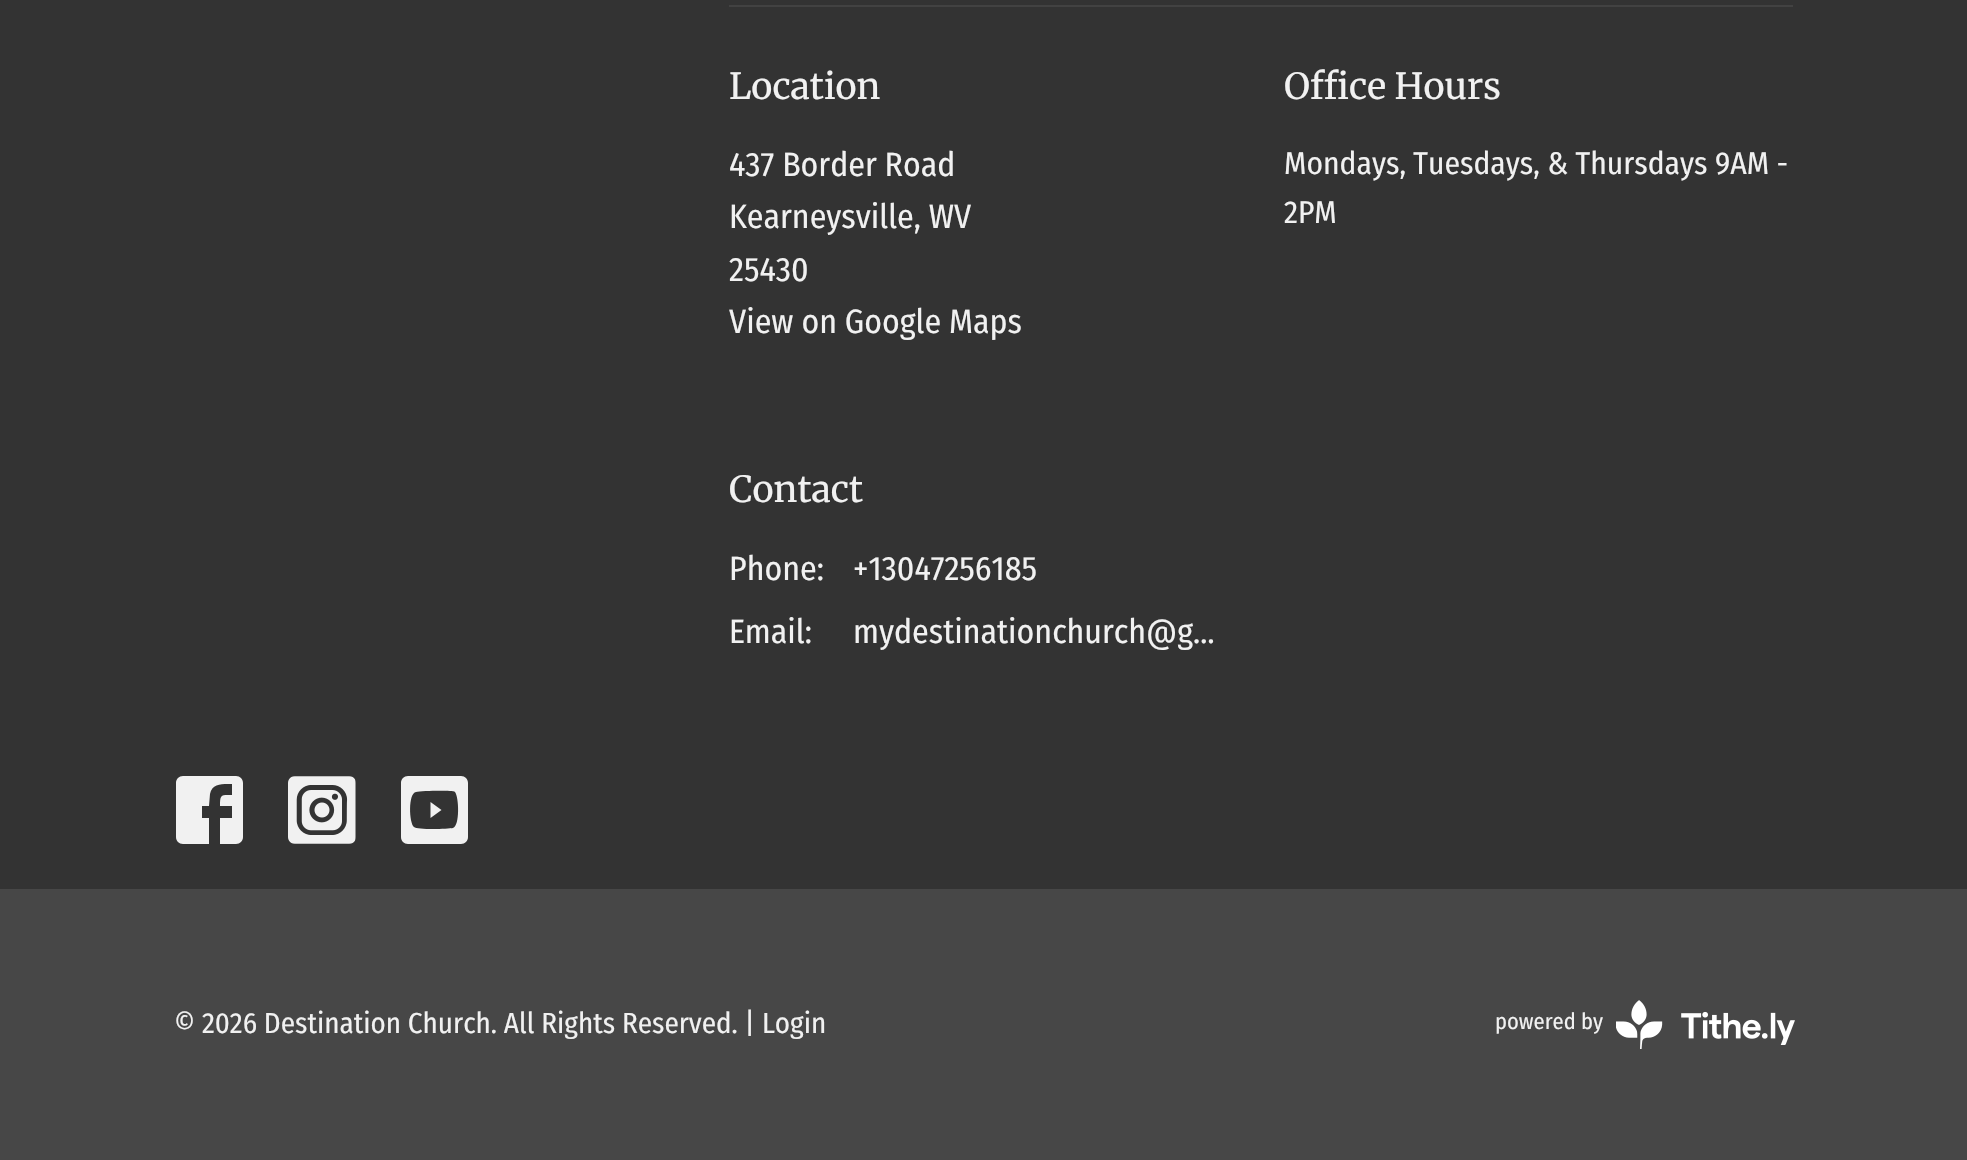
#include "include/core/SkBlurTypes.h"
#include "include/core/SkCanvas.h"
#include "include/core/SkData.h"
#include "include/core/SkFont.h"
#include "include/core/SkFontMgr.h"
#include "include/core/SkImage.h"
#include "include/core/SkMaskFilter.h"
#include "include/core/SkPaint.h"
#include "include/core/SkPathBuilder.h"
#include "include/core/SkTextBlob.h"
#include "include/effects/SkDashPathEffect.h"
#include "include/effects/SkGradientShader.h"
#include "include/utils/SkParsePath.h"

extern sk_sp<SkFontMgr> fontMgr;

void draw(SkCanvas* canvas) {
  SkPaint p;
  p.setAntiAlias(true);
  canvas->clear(SkColorSetRGB(71, 71, 71));
  p.setColor(SkColorSetRGB(51, 51, 51));
  canvas->drawRect(SkRect::MakeLTRB(0, 0, 1967, 889), p);
  p.setColor(SkColorSetRGB(66, 66, 66));
  canvas->drawRect(SkRect::MakeLTRB(729, 5, 1793, 7), p);
  p.setColor(SkColorSetRGB(241, 241, 241));
  canvas->drawPath(SkPathBuilder().moveTo(232, 784).lineTo(232, 795).cubicTo(221, 795, 220, 794, 220, 806).lineTo(232, 806).lineTo(232, 818).lineTo(220, 818).lineTo(220, 844).lineTo(236, 844).cubicTo(240, 844, 243, 841, 243, 837).lineTo(243, 783).cubicTo(243, 779, 240, 776, 236, 776).lineTo(183, 776).cubicTo(179, 776, 176, 779, 176, 783).lineTo(176, 837).cubicTo(176, 841, 179, 844, 183, 844).lineTo(209, 844).lineTo(209, 818).lineTo(202, 818).lineTo(202, 806).lineTo(209, 806).lineTo(210, 794).cubicTo(212, 783, 223, 784, 232, 784).close().detach(), p);
  canvas->drawImageRect(SkImages::DeferredFromEncodedData(SkData::MakeFromFileName("images/1.png")), SkRect::MakeLTRB(288, 776, 356, 844), SkSamplingOptions());
  canvas->drawPath(SkPathBuilder().moveTo(430.5f, 802).lineTo(441.5f, 810).lineTo(430.5f, 818).close().detach(), p);
  canvas->drawPath(SkPathBuilder(SkPathFillType::kEvenOdd).moveTo(408, 776).cubicTo(404, 776, 401, 779, 401, 783).lineTo(401, 837).cubicTo(401, 841, 404, 844, 408, 844).lineTo(461, 844).cubicTo(465, 844, 468, 841, 468, 837).lineTo(468, 783).cubicTo(468, 779, 465, 776, 461, 776).close().moveTo(453, 828).cubicTo(460, 826, 459, 797, 455, 792).cubicTo(452, 790, 421, 791, 416, 792).cubicTo(408, 793, 409, 823, 414, 827).cubicTo(417, 830, 448, 829, 453, 828).close().detach(), p);
  canvas->drawImageRect(SkImages::DeferredFromEncodedData(SkData::MakeFromFileName("images/2.png")), SkRect::MakeLTRB(1616, 1000, 1795, 1049), SkSamplingOptions());
  SkFont font1(fontMgr->matchFamilyStyle("Merriweather", SkFontStyle::Normal()), 36);
  font1.setSubpixel(true);
  canvas->drawString("Location", 729, 99, font1, p);
  SkFont font2(fontMgr->matchFamilyStyle("Fira Sans Condensed", SkFontStyle::Normal()), 33.75f);
  font2.setSubpixel(true);
  canvas->drawString("437 Border Road", 729, 176, font2, p);
  canvas->drawString("Kearneysville, WV", 729, 228, font2, p);
  canvas->drawString("25430", 729, 281, font2, p);
  canvas->drawString("View on Google Maps", 729, 333, font2, p);
  canvas->drawString("Office Hours", 1284, 99, font1, p);
  SkFont font3(fontMgr->matchFamilyStyle("Fira Sans Condensed", SkFontStyle::Normal()), 31.5f);
  font3.setSubpixel(true);
  canvas->drawString("Mondays, Tuesdays, & Thursdays 9AM -", 1284, 174, font3, p);
  canvas->drawString("2PM", 1284, 223, font3, p);
  canvas->drawString("Contact", 729, 502, font1, p);
  canvas->drawString("Phone:", 729, 580, font2, p);
  canvas->drawString("+13047256185", 853, 580, font2, p);
  canvas->drawString("Email:", 729, 643, font2, p);
  canvas->drawString("mydestinationchurch@g…", 853, 643, font2, p);
  SkFont font4(fontMgr->matchFamilyStyle("Fira Sans Condensed", SkFontStyle::Normal()), 29);
  font4.setSubpixel(true);
  canvas->drawString("© 2026 Destination Church. All Rights Reserved. |", 174, 1033, font4, p);
  canvas->drawString("Login", 762, 1033, font4, p);
  SkFont font5(fontMgr->matchFamilyStyle("Fira Sans Condensed", SkFontStyle::Normal()), 22.5f);
  font5.setSubpixel(true);
  canvas->drawString("powered by", 1495, 1029, font5, p);
}
